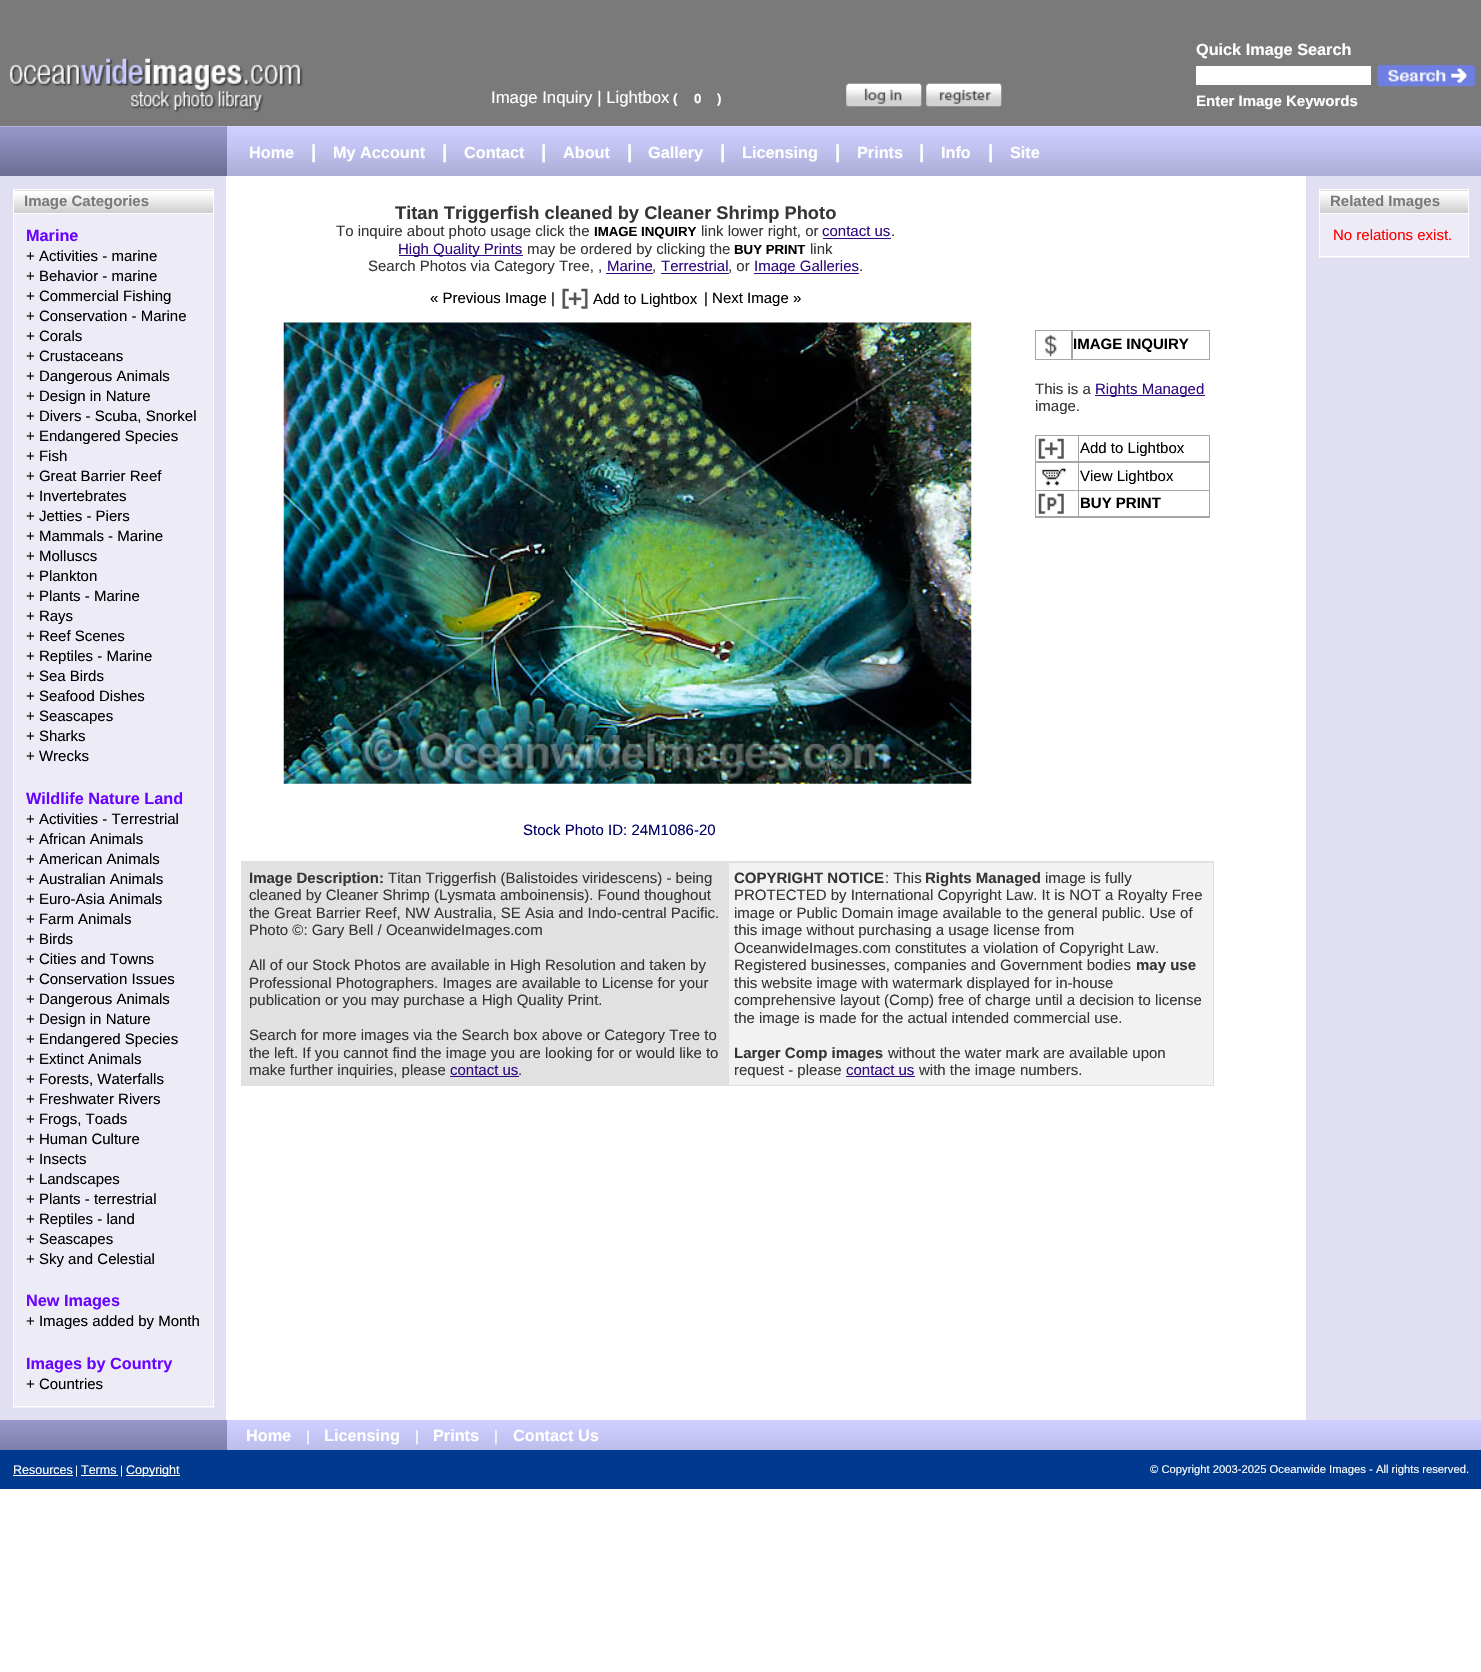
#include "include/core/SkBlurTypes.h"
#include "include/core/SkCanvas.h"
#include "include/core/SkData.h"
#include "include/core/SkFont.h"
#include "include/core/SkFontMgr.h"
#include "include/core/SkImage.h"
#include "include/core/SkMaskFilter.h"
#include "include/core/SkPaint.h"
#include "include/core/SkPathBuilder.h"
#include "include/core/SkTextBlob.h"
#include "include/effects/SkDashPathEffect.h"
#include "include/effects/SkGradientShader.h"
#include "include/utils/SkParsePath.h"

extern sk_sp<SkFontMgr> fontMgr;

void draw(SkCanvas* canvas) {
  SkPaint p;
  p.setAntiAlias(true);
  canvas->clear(SK_ColorWHITE);
  p.setColor(SkColorSetRGB(122, 122, 122));
  canvas->drawRect(SkRect::MakeLTRB(0, 0, 1481, 126), p);
  canvas->drawImageRect(SkImages::DeferredFromEncodedData(SkData::MakeFromFileName("images/1.png")), SkRect::MakeLTRB(9, 58, 303, 113), SkSamplingOptions());
  canvas->drawImageRect(SkImages::DeferredFromEncodedData(SkData::MakeFromFileName("images/2.png")), SkRect::MakeLTRB(846, 83, 922, 107), SkSamplingOptions());
  canvas->drawImageRect(SkImages::DeferredFromEncodedData(SkData::MakeFromFileName("images/3.png")), SkRect::MakeLTRB(926, 83, 1002, 107), SkSamplingOptions());
  p.setColor(SK_ColorWHITE);
  canvas->drawRect(SkRect::MakeLTRB(1196, 66, 1371, 85), p);
  canvas->drawImageRect(SkImages::DeferredFromEncodedData(SkData::MakeFromFileName("images/4.png")), SkRect::MakeLTRB(1377, 64, 1476, 87), SkSamplingOptions());
  canvas->drawImageRect(SkImages::DeferredFromEncodedData(SkData::MakeFromFileName("images/5.png")), SkRect::MakeLTRB(0, 126, 228, 176), SkSamplingOptions());
  canvas->drawImageRect(SkImages::DeferredFromEncodedData(SkData::MakeFromFileName("images/6.png")), SkRect::MakeLTRB(227, 126, 1481, 176), SkSamplingOptions());
  p.setColor(SkColorSetRGB(224, 224, 242));
  canvas->drawRect(SkRect::MakeLTRB(0, 176, 226, 1420), p);
  p.setColor(SK_ColorWHITE);
  canvas->drawRect(SkRect::MakeLTRB(13, 189, 214, 190), p);
  canvas->drawRect(SkRect::MakeLTRB(213, 189, 214, 1408), p);
  p.setColor(SkColorSetRGB(237, 235, 246));
  canvas->drawRect(SkRect::MakeLTRB(14, 214, 213, 1408), p);
  p.setColor(SK_ColorWHITE);
  canvas->drawRect(SkRect::MakeLTRB(13, 1406, 214, 1407), p);
  canvas->drawRect(SkRect::MakeLTRB(13, 189, 14, 1408), p);
  canvas->drawImageRect(SkImages::DeferredFromEncodedData(SkData::MakeFromFileName("images/7.png")), SkRect::MakeLTRB(14, 190, 213, 213), SkSamplingOptions());
  canvas->drawRect(SkRect::MakeLTRB(13, 213, 214, 214), p);
  p.setColor(SkColorSetRGB(49, 10, 128));
  canvas->drawRect(SkRect::MakeLTRB(823, 238, 891, 239), p);
  canvas->drawRect(SkRect::MakeLTRB(399, 255, 523, 256), p);
  canvas->drawRect(SkRect::MakeLTRB(606, 273, 653, 274), p);
  canvas->drawRect(SkRect::MakeLTRB(661, 273, 729, 274), p);
  canvas->drawRect(SkRect::MakeLTRB(754, 273, 859, 274), p);
  canvas->drawImageRect(SkImages::DeferredFromEncodedData(SkData::MakeFromFileName("images/8.png")), SkRect::MakeLTRB(562, 288, 588, 309), SkSamplingOptions());
  p.setColor(SkColorSetRGB(166, 166, 166));
  canvas->drawRect(SkRect::MakeLTRB(1035, 330, 1210, 360), p);
  p.setColor(SK_ColorWHITE);
  canvas->drawRect(SkRect::MakeLTRB(1036, 331, 1071, 359), p);
  canvas->drawImageRect(SkImages::DeferredFromEncodedData(SkData::MakeFromFileName("images/9.png")), SkRect::MakeLTRB(1044, 334, 1057, 357), SkSamplingOptions());
  canvas->drawRect(SkRect::MakeLTRB(1073, 331, 1209, 359), p);
  p.setColor(SkColorSetRGB(49, 10, 128));
  canvas->drawRect(SkRect::MakeLTRB(1095, 395, 1205, 396), p);
  p.setColor(SkColorSetRGB(166, 166, 166));
  canvas->drawRect(SkRect::MakeLTRB(1035, 435, 1210, 518), p);
  p.setColor(SK_ColorWHITE);
  canvas->drawRect(SkRect::MakeLTRB(1036, 436, 1078, 461), p);
  canvas->drawImageRect(SkImages::DeferredFromEncodedData(SkData::MakeFromFileName("images/10.png")), SkRect::MakeLTRB(1038, 438, 1064, 459), SkSamplingOptions());
  canvas->drawRect(SkRect::MakeLTRB(1079, 436, 1209, 461), p);
  canvas->drawRect(SkRect::MakeLTRB(1036, 463, 1078, 490), p);
  canvas->drawImageRect(SkImages::DeferredFromEncodedData(SkData::MakeFromFileName("images/11.png")), SkRect::MakeLTRB(1041, 467, 1067, 487), SkSamplingOptions());
  canvas->drawRect(SkRect::MakeLTRB(1079, 463, 1209, 490), p);
  canvas->drawRect(SkRect::MakeLTRB(1036, 491, 1078, 516), p);
  canvas->drawImageRect(SkImages::DeferredFromEncodedData(SkData::MakeFromFileName("images/12.png")), SkRect::MakeLTRB(1038, 493, 1064, 514), SkSamplingOptions());
  canvas->drawRect(SkRect::MakeLTRB(1079, 491, 1209, 516), p);
  canvas->drawImageRect(SkImages::DeferredFromEncodedData(SkData::MakeFromFileName("images/13.png")), SkRect::MakeLTRB(283, 322, 972, 784), SkSamplingOptions());
  p.setColor(SkColorSetRGB(225, 225, 225));
  canvas->drawRect(SkRect::MakeLTRB(241, 861, 1214, 1086), p);
  p.setColor(SkColorSetRGB(49, 10, 128));
  canvas->drawRect(SkRect::MakeLTRB(450, 1076, 519, 1077), p);
  p.setColor(SkColorSetRGB(243, 242, 242));
  canvas->drawRect(SkRect::MakeLTRB(729, 863, 1213, 1085), p);
  p.setColor(SkColorSetRGB(49, 10, 128));
  canvas->drawRect(SkRect::MakeLTRB(846, 1076, 915, 1077), p);
  p.setColor(SkColorSetRGB(224, 224, 242));
  canvas->drawRect(SkRect::MakeLTRB(1306, 176, 1481, 1420), p);
  p.setColor(SK_ColorWHITE);
  canvas->drawRect(SkRect::MakeLTRB(1319, 189, 1469, 190), p);
  canvas->drawRect(SkRect::MakeLTRB(1468, 189, 1469, 258), p);
  p.setColor(SkColorSetRGB(237, 235, 246));
  canvas->drawRect(SkRect::MakeLTRB(1320, 214, 1468, 258), p);
  p.setColor(SK_ColorWHITE);
  canvas->drawRect(SkRect::MakeLTRB(1319, 256, 1469, 257), p);
  canvas->drawRect(SkRect::MakeLTRB(1319, 189, 1320, 258), p);
  canvas->drawImageRect(SkImages::DeferredFromEncodedData(SkData::MakeFromFileName("images/14.png")), SkRect::MakeLTRB(1320, 190, 1468, 213), SkSamplingOptions());
  canvas->drawRect(SkRect::MakeLTRB(1319, 213, 1469, 214), p);
  canvas->drawImageRect(SkImages::DeferredFromEncodedData(SkData::MakeFromFileName("images/15.png")), SkRect::MakeLTRB(0, 1420, 228, 1450), SkSamplingOptions());
  canvas->drawImageRect(SkImages::DeferredFromEncodedData(SkData::MakeFromFileName("images/16.png")), SkRect::MakeLTRB(227, 1420, 1481, 1450), SkSamplingOptions());
  p.setColor(SkColorSetRGB(0, 58, 142));
  canvas->drawRect(SkRect::MakeLTRB(0, 1450, 1481, 1489), p);
  p.setColor(SK_ColorWHITE);
  canvas->drawRect(SkRect::MakeLTRB(13, 1475, 73, 1476), p);
  canvas->drawRect(SkRect::MakeLTRB(81, 1475, 118, 1476), p);
  canvas->drawRect(SkRect::MakeLTRB(126, 1475, 180, 1476), p);
  SkFont font1(fontMgr->matchFamilyStyle("Liberation Sans", SkFontStyle::Normal()), 16.75f);
  font1.setSubpixel(true);
  canvas->drawString("Image Inquiry | Lightbox", 491, 103, font1, p);
  SkFont font2(fontMgr->matchFamilyStyle("Liberation Sans", SkFontStyle::Bold()), 13.25f);
  font2.setSubpixel(true);
  canvas->drawString("(", 673, 103, font2, p);
  canvas->drawString("0", 694, 103, font2, p);
  canvas->drawString(")", 717, 103, font2, p);
  SkFont font3(fontMgr->matchFamilyStyle("Liberation Sans", SkFontStyle::Bold()), 16.25f);
  font3.setSubpixel(true);
  canvas->drawString("Quick Image Search", 1196, 55, font3, p);
  SkFont font4(fontMgr->matchFamilyStyle("Liberation Sans", SkFontStyle::Bold()), 15);
  font4.setSubpixel(true);
  canvas->drawString("Enter Image Keywords", 1196, 106, font4, p);
  canvas->drawString("Home", 249, 158, font3, p);
  SkFont font5(fontMgr->matchFamilyStyle("Liberation Sans", SkFontStyle::Bold()), 19);
  font5.setSubpixel(true);
  canvas->drawString("|", 311, 158, font5, p);
  canvas->drawString("My Account", 333, 158, font3, p);
  canvas->drawString("|", 442, 158, font5, p);
  canvas->drawString("Contact", 464, 158, font3, p);
  canvas->drawString("|", 541, 158, font5, p);
  canvas->drawString("About", 563, 158, font3, p);
  canvas->drawString("|", 627, 158, font5, p);
  canvas->drawString("Gallery", 648, 158, font3, p);
  canvas->drawString("|", 720, 158, font5, p);
  canvas->drawString("Licensing", 742, 158, font3, p);
  canvas->drawString("|", 835, 158, font5, p);
  canvas->drawString("Prints", 857, 158, font3, p);
  canvas->drawString("|", 919, 158, font5, p);
  canvas->drawString("Info", 941, 158, font3, p);
  canvas->drawString("|", 988, 158, font5, p);
  canvas->drawString("Site", 1010, 158, font3, p);
  p.setColor(SkColorSetRGB(122, 122, 122));
  canvas->drawString("Image Categories", 24, 206, font4, p);
  p.setColor(SkColorSetRGB(105, 5, 255));
  canvas->drawString("Marine", 26, 241, font3, p);
  SkFont font6(fontMgr->matchFamilyStyle("Liberation Sans", SkFontStyle::Normal()), 15);
  font6.setSubpixel(true);
  p.setColor(SK_ColorBLACK);
  canvas->drawString("+ Activities - marine", 26, 261, font6, p);
  canvas->drawString("+ Behavior - marine", 26, 281, font6, p);
  canvas->drawString("+ Commercial Fishing", 26, 301, font6, p);
  canvas->drawString("+ Conservation - Marine", 26, 321, font6, p);
  canvas->drawString("+ Corals", 26, 341, font6, p);
  canvas->drawString("+ Crustaceans", 26, 361, font6, p);
  canvas->drawString("+ Dangerous Animals", 26, 381, font6, p);
  canvas->drawString("+ Design in Nature", 26, 401, font6, p);
  canvas->drawString("+ Divers - Scuba, Snorkel", 26, 421, font6, p);
  canvas->drawString("+ Endangered Species", 26, 441, font6, p);
  canvas->drawString("+ Fish", 26, 461, font6, p);
  canvas->drawString("+ Great Barrier Reef", 26, 481, font6, p);
  canvas->drawString("+ Invertebrates", 26, 501, font6, p);
  canvas->drawString("+ Jetties - Piers", 26, 521, font6, p);
  canvas->drawString("+ Mammals - Marine", 26, 541, font6, p);
  canvas->drawString("+ Molluscs", 26, 561, font6, p);
  canvas->drawString("+ Plankton", 26, 581, font6, p);
  canvas->drawString("+ Plants - Marine", 26, 601, font6, p);
  canvas->drawString("+ Rays", 26, 621, font6, p);
  canvas->drawString("+ Reef Scenes", 26, 641, font6, p);
  canvas->drawString("+ Reptiles - Marine", 26, 661, font6, p);
  canvas->drawString("+ Sea Birds", 26, 681, font6, p);
  canvas->drawString("+ Seafood Dishes", 26, 701, font6, p);
  canvas->drawString("+ Seascapes", 26, 721, font6, p);
  canvas->drawString("+ Sharks", 26, 741, font6, p);
  canvas->drawString("+ Wrecks", 26, 761, font6, p);
  p.setColor(SkColorSetRGB(105, 5, 255));
  canvas->drawString("Wildlife Nature Land", 26, 804, font3, p);
  p.setColor(SK_ColorBLACK);
  canvas->drawString("+ Activities - Terrestrial", 26, 824, font6, p);
  canvas->drawString("+ African Animals", 26, 844, font6, p);
  canvas->drawString("+ American Animals", 26, 864, font6, p);
  canvas->drawString("+ Australian Animals", 26, 884, font6, p);
  canvas->drawString("+ Euro-Asia Animals", 26, 904, font6, p);
  canvas->drawString("+ Farm Animals", 26, 924, font6, p);
  canvas->drawString("+ Birds", 26, 944, font6, p);
  canvas->drawString("+ Cities and Towns", 26, 964, font6, p);
  canvas->drawString("+ Conservation Issues", 26, 984, font6, p);
  canvas->drawString("+ Dangerous Animals", 26, 1004, font6, p);
  canvas->drawString("+ Design in Nature", 26, 1024, font6, p);
  canvas->drawString("+ Endangered Species", 26, 1044, font6, p);
  canvas->drawString("+ Extinct Animals", 26, 1064, font6, p);
  canvas->drawString("+ Forests, Waterfalls", 26, 1084, font6, p);
  canvas->drawString("+ Freshwater Rivers", 26, 1104, font6, p);
  canvas->drawString("+ Frogs, Toads", 26, 1124, font6, p);
  canvas->drawString("+ Human Culture", 26, 1144, font6, p);
  canvas->drawString("+ Insects", 26, 1164, font6, p);
  canvas->drawString("+ Landscapes", 26, 1184, font6, p);
  canvas->drawString("+ Plants - terrestrial", 26, 1204, font6, p);
  canvas->drawString("+ Reptiles - land", 26, 1224, font6, p);
  canvas->drawString("+ Seascapes", 26, 1244, font6, p);
  canvas->drawString("+ Sky and Celestial", 26, 1264, font6, p);
  p.setColor(SkColorSetRGB(105, 5, 255));
  canvas->drawString("New Images", 26, 1306, font3, p);
  p.setColor(SK_ColorBLACK);
  canvas->drawString("+ Images added by Month", 26, 1326, font6, p);
  p.setColor(SkColorSetRGB(105, 5, 255));
  canvas->drawString("Images by Country", 26, 1369, font3, p);
  p.setColor(SK_ColorBLACK);
  canvas->drawString("+ Countries", 26, 1389, font6, p);
  SkFont font7(fontMgr->matchFamilyStyle("Liberation Sans", SkFontStyle::Bold()), 18.3f);
  font7.setSubpixel(true);
  p.setColor(SkColorSetRGB(53, 53, 53));
  canvas->drawString("Titan Triggerfish cleaned by Cleaner Shrimp Photo", 395, 219, font7, p);
  canvas->drawString("To inquire about photo usage click the", 336, 236, font6, p);
  p.setColor(SK_ColorBLACK);
  canvas->drawString("IMAGE INQUIRY", 594, 236, font2, p);
  p.setColor(SkColorSetRGB(53, 53, 53));
  canvas->drawString("link lower right, or", 701, 236, font6, p);
  p.setColor(SkColorSetRGB(49, 10, 128));
  canvas->drawString("contact us", 822, 236, font6, p);
  p.setColor(SkColorSetRGB(53, 53, 53));
  canvas->drawString(".", 891, 236, font6, p);
  p.setColor(SkColorSetRGB(49, 10, 128));
  canvas->drawString("High Quality Prints", 398, 254, font6, p);
  p.setColor(SkColorSetRGB(53, 53, 53));
  canvas->drawString("may be ordered by clicking the", 527, 254, font6, p);
  p.setColor(SK_ColorBLACK);
  canvas->drawString("BUY PRINT", 734, 254, font2, p);
  p.setColor(SkColorSetRGB(53, 53, 53));
  canvas->drawString("link", 810, 254, font6, p);
  canvas->drawString("Search Photos via Category Tree, ,", 368, 271, font6, p);
  p.setColor(SkColorSetRGB(49, 10, 128));
  canvas->drawString("Marine", 607, 271, font6, p);
  p.setColor(SkColorSetRGB(53, 53, 53));
  canvas->drawString(",", 652, 271, font6, p);
  p.setColor(SkColorSetRGB(49, 10, 128));
  canvas->drawString("Terrestrial", 661, 271, font6, p);
  p.setColor(SkColorSetRGB(53, 53, 53));
  canvas->drawString(", or", 728, 271, font6, p);
  p.setColor(SkColorSetRGB(49, 10, 128));
  canvas->drawString("Image Galleries", 754, 271, font6, p);
  p.setColor(SkColorSetRGB(53, 53, 53));
  canvas->drawString(".", 859, 271, font6, p);
  p.setColor(SK_ColorBLACK);
  canvas->drawString("« Previous Image |", 430, 303, font6, p);
  canvas->drawString("Add to Lightbox", 593, 304, font6, p);
  canvas->drawString("| Next Image »", 704, 303, font6, p);
  canvas->drawString("IMAGE INQUIRY", 1073, 349, font4, p);
  p.setColor(SkColorSetRGB(53, 53, 53));
  canvas->drawString("This is a", 1035, 394, font6, p);
  p.setColor(SkColorSetRGB(49, 10, 128));
  canvas->drawString("Rights Managed", 1095, 394, font6, p);
  p.setColor(SkColorSetRGB(53, 53, 53));
  canvas->drawString("image.", 1035, 411, font6, p);
  p.setColor(SK_ColorBLACK);
  canvas->drawString("Add to Lightbox", 1080, 453, font6, p);
  canvas->drawString("View Lightbox", 1080, 481, font6, p);
  canvas->drawString("BUY PRINT", 1080, 508, font4, p);
  p.setColor(SkColorSetRGB(0, 0, 102));
  canvas->drawString("Stock Photo ID: 24M1086-20", 523, 835, font6, p);
  p.setColor(SkColorSetRGB(53, 53, 53));
  canvas->drawString("Image Description:", 249, 883, font4, p);
  canvas->drawString("Titan Triggerfish (Balistoides viridescens) - being", 388, 883, font6, p);
  canvas->drawString("cleaned by Cleaner Shrimp (Lysmata amboinensis). Found thoughout", 249, 900, font6, p);
  canvas->drawString("the Great Barrier Reef, NW Australia, SE Asia and Indo-central Pacific.", 249, 918, font6, p);
  canvas->drawString("Photo ©: Gary Bell / OceanwideImages.com", 249, 935, font6, p);
  canvas->drawString("All of our Stock Photos are available in High Resolution and taken by", 249, 970, font6, p);
  canvas->drawString("Professional Photographers. Images are available to License for your", 249, 988, font6, p);
  canvas->drawString("publication or you may purchase a High Quality Print.", 249, 1005, font6, p);
  canvas->drawString("Search for more images via the Search box above or Category Tree to", 249, 1040, font6, p);
  canvas->drawString("the left. If you cannot find the image you are looking for or would like to", 249, 1058, font6, p);
  canvas->drawString("make further inquiries, please", 249, 1075, font6, p);
  p.setColor(SkColorSetRGB(49, 10, 128));
  canvas->drawString("contact us", 450, 1075, font6, p);
  p.setColor(SkColorSetRGB(53, 53, 53));
  canvas->drawString(".", 518, 1075, font6, p);
  canvas->drawString("COPYRIGHT NOTICE", 734, 883, font4, p);
  canvas->drawString(": This", 885, 883, font6, p);
  canvas->drawString("Rights Managed", 925, 883, font4, p);
  canvas->drawString("image is fully", 1045, 883, font6, p);
  canvas->drawString("PROTECTED by International Copyright Law. It is NOT a Royalty Free", 734, 900, font6, p);
  canvas->drawString("image or Public Domain image available to the general public. Use of", 734, 918, font6, p);
  canvas->drawString("this image without purchasing a usage license from", 734, 935, font6, p);
  canvas->drawString("OceanwideImages.com constitutes a violation of Copyright Law.", 734, 953, font6, p);
  canvas->drawString("Registered businesses, companies and Government bodies", 734, 970, font6, p);
  canvas->drawString("may use", 1136, 970, font4, p);
  canvas->drawString("this website image with watermark displayed for in-house", 734, 988, font6, p);
  canvas->drawString("comprehensive layout (Comp) free of charge until a decision to license", 734, 1005, font6, p);
  canvas->drawString("the image is made for the actual intended commercial use.", 734, 1023, font6, p);
  canvas->drawString("Larger Comp images", 734, 1058, font4, p);
  canvas->drawString("without the water mark are available upon", 888, 1058, font6, p);
  canvas->drawString("request - please", 734, 1075, font6, p);
  p.setColor(SkColorSetRGB(49, 10, 128));
  canvas->drawString("contact us", 846, 1075, font6, p);
  p.setColor(SkColorSetRGB(53, 53, 53));
  canvas->drawString("with the image numbers.", 919, 1075, font6, p);
  p.setColor(SkColorSetRGB(122, 122, 122));
  canvas->drawString("Related Images", 1330, 206, font4, p);
  p.setColor(SkColorSetRGB(255, 0, 0));
  canvas->drawString("No relations exist.", 1333, 240, font6, p);
  p.setColor(SK_ColorWHITE);
  canvas->drawString("Home", 246, 1441, font3, p);
  canvas->drawString("|", 306, 1441, font6, p);
  canvas->drawString("Licensing", 324, 1441, font3, p);
  canvas->drawString("|", 415, 1441, font6, p);
  canvas->drawString("Prints", 433, 1441, font3, p);
  canvas->drawString("|", 494, 1441, font6, p);
  canvas->drawString("Contact Us", 513, 1441, font3, p);
  SkFont font8(fontMgr->matchFamilyStyle("Liberation Sans", SkFontStyle::Normal()), 12.5f);
  font8.setSubpixel(true);
  canvas->drawString("Resources", 13, 1474, font8, p);
  SkFont font9(fontMgr->matchFamilyStyle("Liberation Sans", SkFontStyle::Normal()), 11.25f);
  font9.setSubpixel(true);
  canvas->drawString("|", 75, 1474, font9, p);
  canvas->drawString("Terms", 81, 1474, font8, p);
  canvas->drawString("|", 120, 1474, font9, p);
  canvas->drawString("Copyright", 126, 1474, font8, p);
  canvas->drawString("© Copyright 2003-2025 Oceanwide Images - All rights reserved.", 1150, 1473, font9, p);
}
